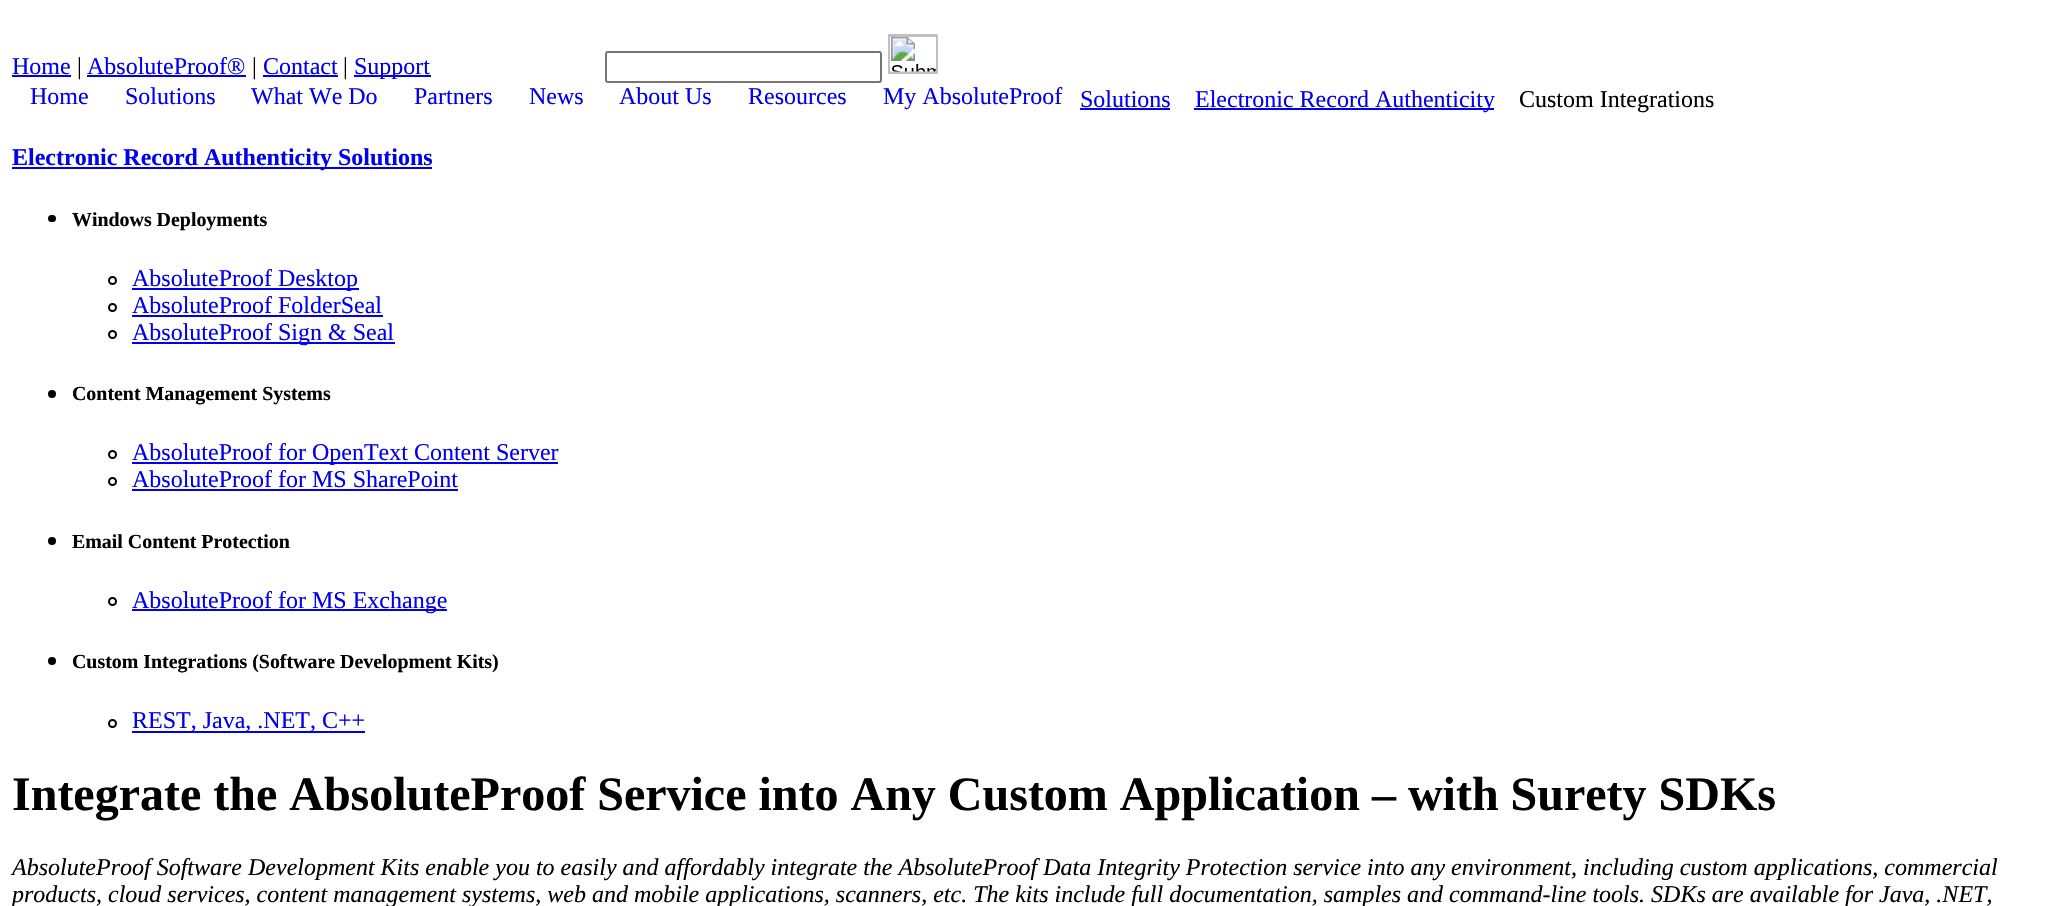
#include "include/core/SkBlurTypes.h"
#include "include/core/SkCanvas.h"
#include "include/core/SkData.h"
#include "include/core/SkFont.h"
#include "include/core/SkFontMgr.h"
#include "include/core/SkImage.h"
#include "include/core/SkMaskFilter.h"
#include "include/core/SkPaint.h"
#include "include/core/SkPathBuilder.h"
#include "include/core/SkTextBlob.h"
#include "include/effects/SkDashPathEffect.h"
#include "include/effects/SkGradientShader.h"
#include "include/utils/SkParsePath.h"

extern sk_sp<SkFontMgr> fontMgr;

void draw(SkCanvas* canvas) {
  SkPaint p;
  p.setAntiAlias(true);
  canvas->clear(SK_ColorWHITE);
  p.setColor(SkColorSetRGB(0, 0, 238));
  canvas->drawRect(SkRect::MakeLTRB(12, 75, 71, 77), p);
  canvas->drawRect(SkRect::MakeLTRB(87, 75, 246, 77), p);
  canvas->drawRect(SkRect::MakeLTRB(263, 75, 338, 77), p);
  canvas->drawRect(SkRect::MakeLTRB(354, 75, 431, 77), p);
  p.setStyle(SkPaint::kStroke_Style);
  p.setStrokeWidth(2);
  p.setColor(SkColorSetRGB(118, 118, 118));
  canvas->drawRoundRect(SkRect::MakeLTRB(606, 52, 881, 82), 2, 2, p);
  canvas->drawImageRect(SkImages::DeferredFromEncodedData(SkData::MakeFromFileName("images/1.png")), SkRect::MakeLTRB(888, 34, 938, 72), SkSamplingOptions());
  p.setColor(SkColorSetRGB(192, 192, 192));
  canvas->drawRect(SkRect::MakeLTRB(889, 36, 937, 73), p);
  p.setStyle(SkPaint::kFill_Style);
  p.setColor(SkColorSetRGB(0, 0, 238));
  canvas->drawRect(SkRect::MakeLTRB(1080, 108, 1170, 110), p);
  canvas->drawRect(SkRect::MakeLTRB(1194, 108, 1494, 110), p);
  canvas->drawRect(SkRect::MakeLTRB(12, 167, 432, 169), p);
  p.setColor(SK_ColorBLACK);
  canvas->drawRoundRect(SkRect::MakeLTRB(48, 215, 56, 222), 3.5f, 3.5f, p);
  p.setStyle(SkPaint::kStroke_Style);
  canvas->drawCircle(112.5f, 280.5f, 3.5f, p);
  p.setStyle(SkPaint::kFill_Style);
  p.setColor(SkColorSetRGB(0, 0, 238));
  canvas->drawRect(SkRect::MakeLTRB(132, 288, 359, 290), p);
  p.setStyle(SkPaint::kStroke_Style);
  p.setColor(SK_ColorBLACK);
  canvas->drawCircle(112.5f, 307.5f, 3.5f, p);
  p.setStyle(SkPaint::kFill_Style);
  p.setColor(SkColorSetRGB(0, 0, 238));
  canvas->drawRect(SkRect::MakeLTRB(132, 315, 383, 317), p);
  p.setStyle(SkPaint::kStroke_Style);
  p.setColor(SK_ColorBLACK);
  canvas->drawCircle(112.5f, 334.5f, 3.5f, p);
  p.setStyle(SkPaint::kFill_Style);
  p.setColor(SkColorSetRGB(0, 0, 238));
  canvas->drawRect(SkRect::MakeLTRB(132, 342, 395, 344), p);
  p.setColor(SK_ColorBLACK);
  canvas->drawCircle(52, 394, 4, p);
  p.setStyle(SkPaint::kStroke_Style);
  canvas->drawCircle(112.5f, 454.5f, 3.5f, p);
  p.setStyle(SkPaint::kFill_Style);
  p.setColor(SkColorSetRGB(0, 0, 238));
  canvas->drawRect(SkRect::MakeLTRB(132, 462, 558, 464), p);
  p.setStyle(SkPaint::kStroke_Style);
  p.setColor(SK_ColorBLACK);
  canvas->drawCircle(112.5f, 481.5f, 3.5f, p);
  p.setStyle(SkPaint::kFill_Style);
  p.setColor(SkColorSetRGB(0, 0, 238));
  canvas->drawRect(SkRect::MakeLTRB(132, 489, 458, 491), p);
  p.setColor(SK_ColorBLACK);
  canvas->drawCircle(52, 541, 4, p);
  p.setStyle(SkPaint::kStroke_Style);
  canvas->drawCircle(112.5f, 601.5f, 3.5f, p);
  p.setStyle(SkPaint::kFill_Style);
  p.setColor(SkColorSetRGB(0, 0, 238));
  canvas->drawRect(SkRect::MakeLTRB(132, 609, 447, 611), p);
  p.setColor(SK_ColorBLACK);
  canvas->drawCircle(52, 661, 4, p);
  p.setStyle(SkPaint::kStroke_Style);
  canvas->drawCircle(112.5f, 723.5f, 3.5f, p);
  p.setStyle(SkPaint::kFill_Style);
  p.setColor(SkColorSetRGB(0, 0, 238));
  canvas->drawRect(SkRect::MakeLTRB(132, 731, 365, 733), p);
  SkFont font1(fontMgr->matchFamilyStyle("Liberation Serif", SkFontStyle::Normal()), 24);
  font1.setSubpixel(true);
  canvas->drawString("Home", 12, 74, font1, p);
  p.setColor(SK_ColorBLACK);
  canvas->drawString("|", 77, 74, font1, p);
  p.setColor(SkColorSetRGB(0, 0, 238));
  canvas->drawString("AbsoluteProof®", 87, 74, font1, p);
  p.setColor(SK_ColorBLACK);
  canvas->drawString("|", 252, 74, font1, p);
  p.setColor(SkColorSetRGB(0, 0, 238));
  canvas->drawString("Contact", 263, 74, font1, p);
  p.setColor(SK_ColorBLACK);
  canvas->drawString("|", 343, 74, font1, p);
  p.setColor(SkColorSetRGB(0, 0, 238));
  canvas->drawString("Support", 354, 74, font1, p);
  canvas->drawString("Home", 30, 104, font1, p);
  canvas->drawString("Solutions", 125, 104, font1, p);
  canvas->drawString("What We Do", 251, 104, font1, p);
  canvas->drawString("Partners", 414, 104, font1, p);
  canvas->drawString("News", 529, 104, font1, p);
  canvas->drawString("About Us", 619, 104, font1, p);
  canvas->drawString("Resources", 748, 104, font1, p);
  canvas->drawString("My AbsoluteProof", 883, 104, font1, p);
  canvas->drawString("Solutions", 1080, 107, font1, p);
  canvas->drawString("Electronic Record Authenticity", 1195, 107, font1, p);
  p.setColor(SK_ColorBLACK);
  canvas->drawString("Custom Integrations", 1519, 107, font1, p);
  SkFont font2(fontMgr->matchFamilyStyle("Liberation Serif", SkFontStyle::Bold()), 24);
  font2.setSubpixel(true);
  p.setColor(SkColorSetRGB(0, 0, 238));
  canvas->drawString("Electronic Record Authenticity Solutions", 12, 165, font2, p);
  SkFont font3(fontMgr->matchFamilyStyle("Liberation Serif", SkFontStyle::Bold()), 19.9f);
  font3.setSubpixel(true);
  p.setColor(SK_ColorBLACK);
  canvas->drawString("Windows Deployments", 72, 226, font3, p);
  p.setColor(SkColorSetRGB(0, 0, 238));
  canvas->drawString("AbsoluteProof Desktop", 132, 286, font1, p);
  canvas->drawString("AbsoluteProof FolderSeal", 132, 313, font1, p);
  canvas->drawString("AbsoluteProof Sign & Seal", 132, 340, font1, p);
  p.setColor(SK_ColorBLACK);
  canvas->drawString("Content Management Systems", 72, 400, font3, p);
  p.setColor(SkColorSetRGB(0, 0, 238));
  canvas->drawString("AbsoluteProof for OpenText Content Server", 132, 460, font1, p);
  canvas->drawString("AbsoluteProof for MS SharePoint", 132, 487, font1, p);
  p.setColor(SK_ColorBLACK);
  canvas->drawString("Email Content Protection", 72, 548, font3, p);
  p.setColor(SkColorSetRGB(0, 0, 238));
  canvas->drawString("AbsoluteProof for MS Exchange", 132, 608, font1, p);
  p.setColor(SK_ColorBLACK);
  canvas->drawString("Custom Integrations (Software Development Kits)", 72, 668, font3, p);
  p.setColor(SkColorSetRGB(0, 0, 238));
  canvas->drawString("REST, Java, .NET, C++", 132, 728, font1, p);
  SkFont font4(fontMgr->matchFamilyStyle("Liberation Serif", SkFontStyle::Bold()), 48);
  font4.setSubpixel(true);
  p.setColor(SK_ColorBLACK);
  canvas->drawString("Integrate the AbsoluteProof Service into Any Custom Application – with Surety SDKs", 12, 810, font4, p);
  SkFont font5(fontMgr->matchFamilyStyle("Liberation Serif", SkFontStyle::Italic()), 24);
  font5.setSubpixel(true);
  canvas->drawString("AbsoluteProof Software Development Kits enable you to easily and affordably integrate the AbsoluteProof Data Integrity Protection service into any environment, including custom applications, commercial", 12, 875, font5, p);
  canvas->drawString("products, cloud services, content management systems, web and mobile applications, scanners, etc. The kits include full documentation, samples and command-line tools. SDKs are available for Java, .NET,", 12, 902, font5, p);
}
